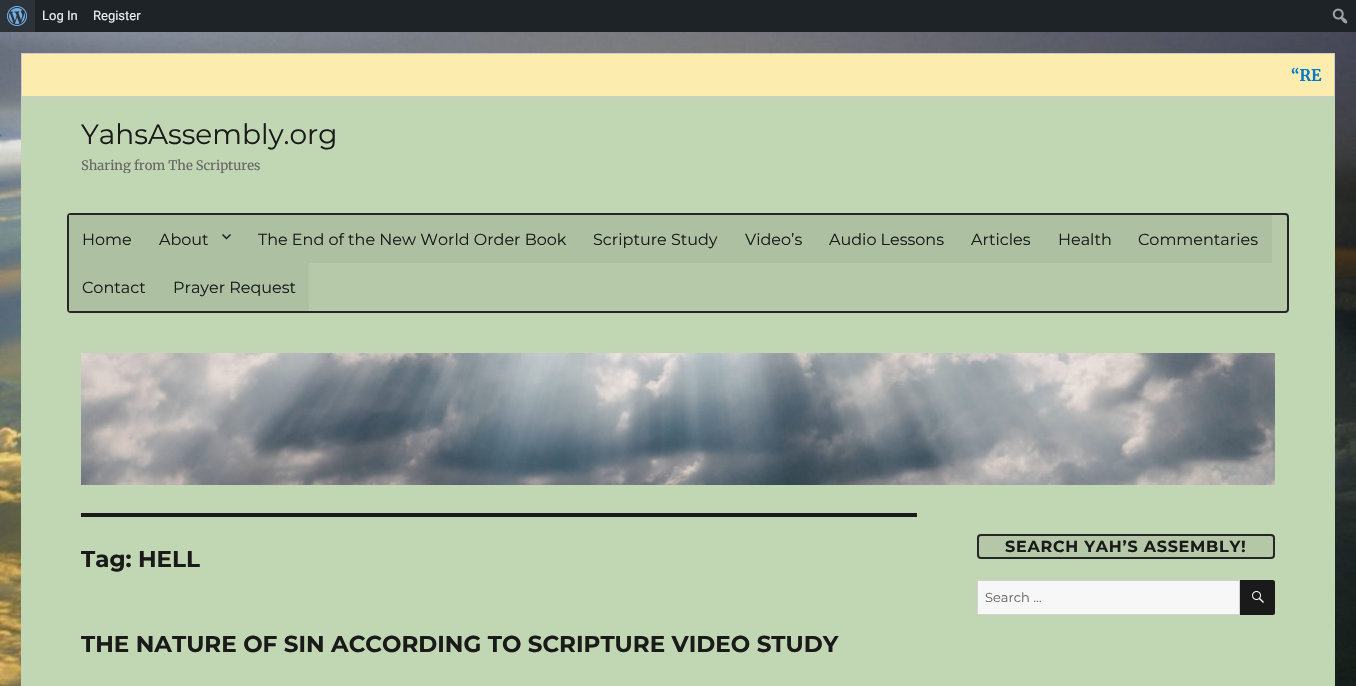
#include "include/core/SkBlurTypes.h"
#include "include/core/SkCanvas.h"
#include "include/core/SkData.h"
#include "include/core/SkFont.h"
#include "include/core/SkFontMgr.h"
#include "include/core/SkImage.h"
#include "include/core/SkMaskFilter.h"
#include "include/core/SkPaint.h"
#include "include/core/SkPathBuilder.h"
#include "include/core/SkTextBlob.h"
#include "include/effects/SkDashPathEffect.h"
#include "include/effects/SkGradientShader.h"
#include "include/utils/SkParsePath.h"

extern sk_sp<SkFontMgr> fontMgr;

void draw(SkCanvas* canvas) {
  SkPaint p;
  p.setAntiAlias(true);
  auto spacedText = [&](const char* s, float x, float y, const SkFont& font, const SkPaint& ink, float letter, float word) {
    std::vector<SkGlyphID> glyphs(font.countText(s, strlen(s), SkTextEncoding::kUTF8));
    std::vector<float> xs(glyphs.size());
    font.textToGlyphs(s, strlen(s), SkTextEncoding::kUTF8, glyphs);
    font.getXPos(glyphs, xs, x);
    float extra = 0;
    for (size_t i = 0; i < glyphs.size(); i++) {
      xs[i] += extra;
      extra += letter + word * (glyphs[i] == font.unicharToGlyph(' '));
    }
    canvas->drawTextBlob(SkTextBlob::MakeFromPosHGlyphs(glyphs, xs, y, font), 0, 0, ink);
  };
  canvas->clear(SK_ColorWHITE);
  canvas->drawImageRect(SkImages::DeferredFromEncodedData(SkData::MakeFromFileName("images/1.png")), SkRect::MakeLTRB(0, 32, 1356, 686), SkSamplingOptions());
  p.setColor(SkColorSetRGB(29, 35, 39));
  canvas->drawRect(SkRect::MakeLTRB(35, 0, 1356, 32), p);
  p.setColor(SkColorSetRGB(44, 51, 56));
  canvas->drawRect(SkRect::MakeLTRB(0, 0, 35, 32), p);
  canvas->drawImageRect(SkImages::DeferredFromEncodedData(SkData::MakeFromFileName("images/2.png")), SkRect::MakeLTRB(7, 6, 27, 26), SkSamplingOptions());
  canvas->drawImageRect(SkImages::DeferredFromEncodedData(SkData::MakeFromFileName("images/3.png")), SkRect::MakeLTRB(1332, 8, 1348, 24), SkSamplingOptions());
  p.setColor(SkColorSetRGB(193, 214, 179));
  canvas->drawRect(SkRect::MakeLTRB(21, 97, 1335, 686), p);
  p.setColor(SkColorSetRGB(252, 236, 173));
  canvas->drawRect(SkRect::MakeLTRB(21.5f, 53.5f, 1334.5f, 96.5f), p);
  p.setStyle(SkPaint::kStroke_Style);
  p.setStrokeWidth(1);
  p.setColor(SkColorSetRGB(204, 204, 204));
  canvas->drawRect(SkRect::MakeLTRB(21.5f, 53.5f, 1334.5f, 96.5f), p);
  p.setStyle(SkPaint::kFill_Style);
  p.setColor(SkColorSetRGB(182, 202, 169));
  canvas->drawRoundRect(SkRect::MakeLTRB(68, 214, 1288, 312), 3, 3, p);
  p.setStyle(SkPaint::kStroke_Style);
  p.setStrokeWidth(2);
  p.setColor(SkColorSetRGB(38, 38, 38));
  canvas->drawRoundRect(SkRect::MakeLTRB(68, 214, 1288, 312), 3, 3, p);
  p.setStyle(SkPaint::kFill_Style);
  p.setColor(SkColorSetRGB(173, 192, 161));
  canvas->drawRect(SkRect::MakeLTRB(69, 215, 1272, 263), p);
  canvas->drawImageRect(SkImages::DeferredFromEncodedData(SkData::MakeFromFileName("images/4.png")), SkRect::MakeLTRB(222, 234, 231, 240), SkSamplingOptions());
  canvas->drawRect(SkRect::MakeLTRB(69, 263, 309, 311), p);
  canvas->drawImageRect(SkImages::DeferredFromEncodedData(SkData::MakeFromFileName("images/5.png")), SkRect::MakeLTRB(81, 353, 1275, 485), SkSamplingOptions());
  p.setColor(SkColorSetRGB(26, 26, 26));
  canvas->drawRect(SkRect::MakeLTRB(81, 513, 917, 517), p);
  p.setColor(SkColorSetRGB(180, 200, 167));
  canvas->drawRoundRect(SkRect::MakeLTRB(978, 535, 1274, 558), 3, 3, p);
  p.setStyle(SkPaint::kStroke_Style);
  p.setColor(SkColorSetRGB(38, 38, 38));
  canvas->drawRoundRect(SkRect::MakeLTRB(978, 535, 1274, 558), 3, 3, p);
  p.setStyle(SkPaint::kFill_Style);
  p.setColor(SkColorSetRGB(247, 247, 247));
  canvas->drawPath(SkPathBuilder().moveTo(979, 580.5f).lineTo(1239.5f, 580.5f).lineTo(1239.5f, 614.5f).lineTo(979, 614.5f).cubicTo(978, 614.5f, 977.5f, 614, 977.5f, 613).lineTo(977.5f, 582).cubicTo(977.5f, 581, 978, 580.5f, 979, 580.5f).close().detach(), p);
  p.setStyle(SkPaint::kStroke_Style);
  p.setStrokeWidth(1);
  p.setColor(SkColorSetRGB(209, 209, 209));
  canvas->drawPath(SkPathBuilder().moveTo(979, 580.5f).lineTo(1239.5f, 580.5f).lineTo(1239.5f, 614.5f).lineTo(979, 614.5f).cubicTo(978, 614.5f, 977.5f, 614, 977.5f, 613).lineTo(977.5f, 582).cubicTo(977.5f, 581, 978, 580.5f, 979, 580.5f).close().detach(), p);
  p.setStyle(SkPaint::kFill_Style);
  p.setColor(SkColorSetRGB(26, 26, 26));
  canvas->drawPath(SkPathBuilder().moveTo(1240, 580).lineTo(1273, 580).cubicTo(1274, 580, 1275, 581, 1275, 582).lineTo(1275, 613).cubicTo(1275, 614, 1274, 615, 1273, 615).lineTo(1240, 615).close().detach(), p);
  canvas->drawImageRect(SkImages::DeferredFromEncodedData(SkData::MakeFromFileName("images/6.png")), SkRect::MakeLTRB(1252, 591, 1264, 603), SkSamplingOptions());
  SkFont font1(fontMgr->matchFamilyStyle("Roboto", SkFontStyle::Normal()), 13);
  font1.setSubpixel(true);
  p.setColor(SkColorSetRGB(240, 240, 241));
  canvas->drawString("Log In", 42, 20, font1, p);
  canvas->drawString("Register", 93, 20, font1, p);
  SkFont font2(fontMgr->matchFamilyStyle("Merriweather", SkFontStyle::Bold()), 16);
  font2.setSubpixel(true);
  p.setColor(SkColorSetRGB(0, 122, 204));
  canvas->drawString("“RE", 1291, 81, font2, p);
  SkFont font3(fontMgr->matchFamilyStyle("Montserrat", SkFontStyle::Normal()), 28);
  font3.setSubpixel(true);
  p.setColor(SkColorSetRGB(26, 26, 26));
  canvas->drawString("YahsAssembly.org", 81, 144, font3, p);
  canvas->save();
  canvas->clipRect(SkRect::MakeLTRB(81, 117, 337, 173));
  SkFont font4(fontMgr->matchFamilyStyle("Merriweather", SkFontStyle::Normal()), 13);
  font4.setSubpixel(true);
  p.setColor(SkColorSetRGB(104, 104, 104));
  canvas->drawString("Sharing from The Scriptures", 81, 170, font4, p);
  canvas->restore();
  SkFont font5(fontMgr->matchFamilyStyle("Montserrat", SkFontStyle::Normal()), 16);
  font5.setSubpixel(true);
  p.setColor(SkColorSetRGB(26, 26, 26));
  canvas->drawString("Home", 82, 245, font5, p);
  canvas->drawString("About", 159, 245, font5, p);
  canvas->drawString("The End of the New World Order Book", 258, 245, font5, p);
  canvas->drawString("Scripture Study", 593, 245, font5, p);
  canvas->drawString("Video’s", 745, 245, font5, p);
  canvas->drawString("Audio Lessons", 829, 245, font5, p);
  canvas->drawString("Articles", 971, 245, font5, p);
  canvas->drawString("Health", 1058, 245, font5, p);
  canvas->drawString("Commentaries", 1138, 245, font5, p);
  canvas->drawString("Contact", 82, 293, font5, p);
  canvas->drawString("Prayer Request", 173, 293, font5, p);
  SkFont font6(fontMgr->matchFamilyStyle("Montserrat", SkFontStyle::Bold()), 23);
  font6.setSubpixel(true);
  canvas->drawString("Tag: HELL", 81, 567, font6, p);
  canvas->drawString("THE NATURE OF SIN ACCORDING TO SCRIPTURE VIDEO STUDY", 81, 652, font6, p);
  SkFont font7(fontMgr->matchFamilyStyle("Montserrat", SkFontStyle::Bold()), 16);
  font7.setSubpixel(true);
  spacedText("SEARCH YAH’S ASSEMBLY!", 1005, 552, font7, p, 0.75f, 0);
  SkFont font8(fontMgr->matchFamilyStyle("Montserrat", SkFontStyle::Normal()), 13);
  font8.setSubpixel(true);
  p.setColor(SkColorSetRGB(104, 104, 104));
  canvas->drawString("Search …", 985, 602, font8, p);
}
